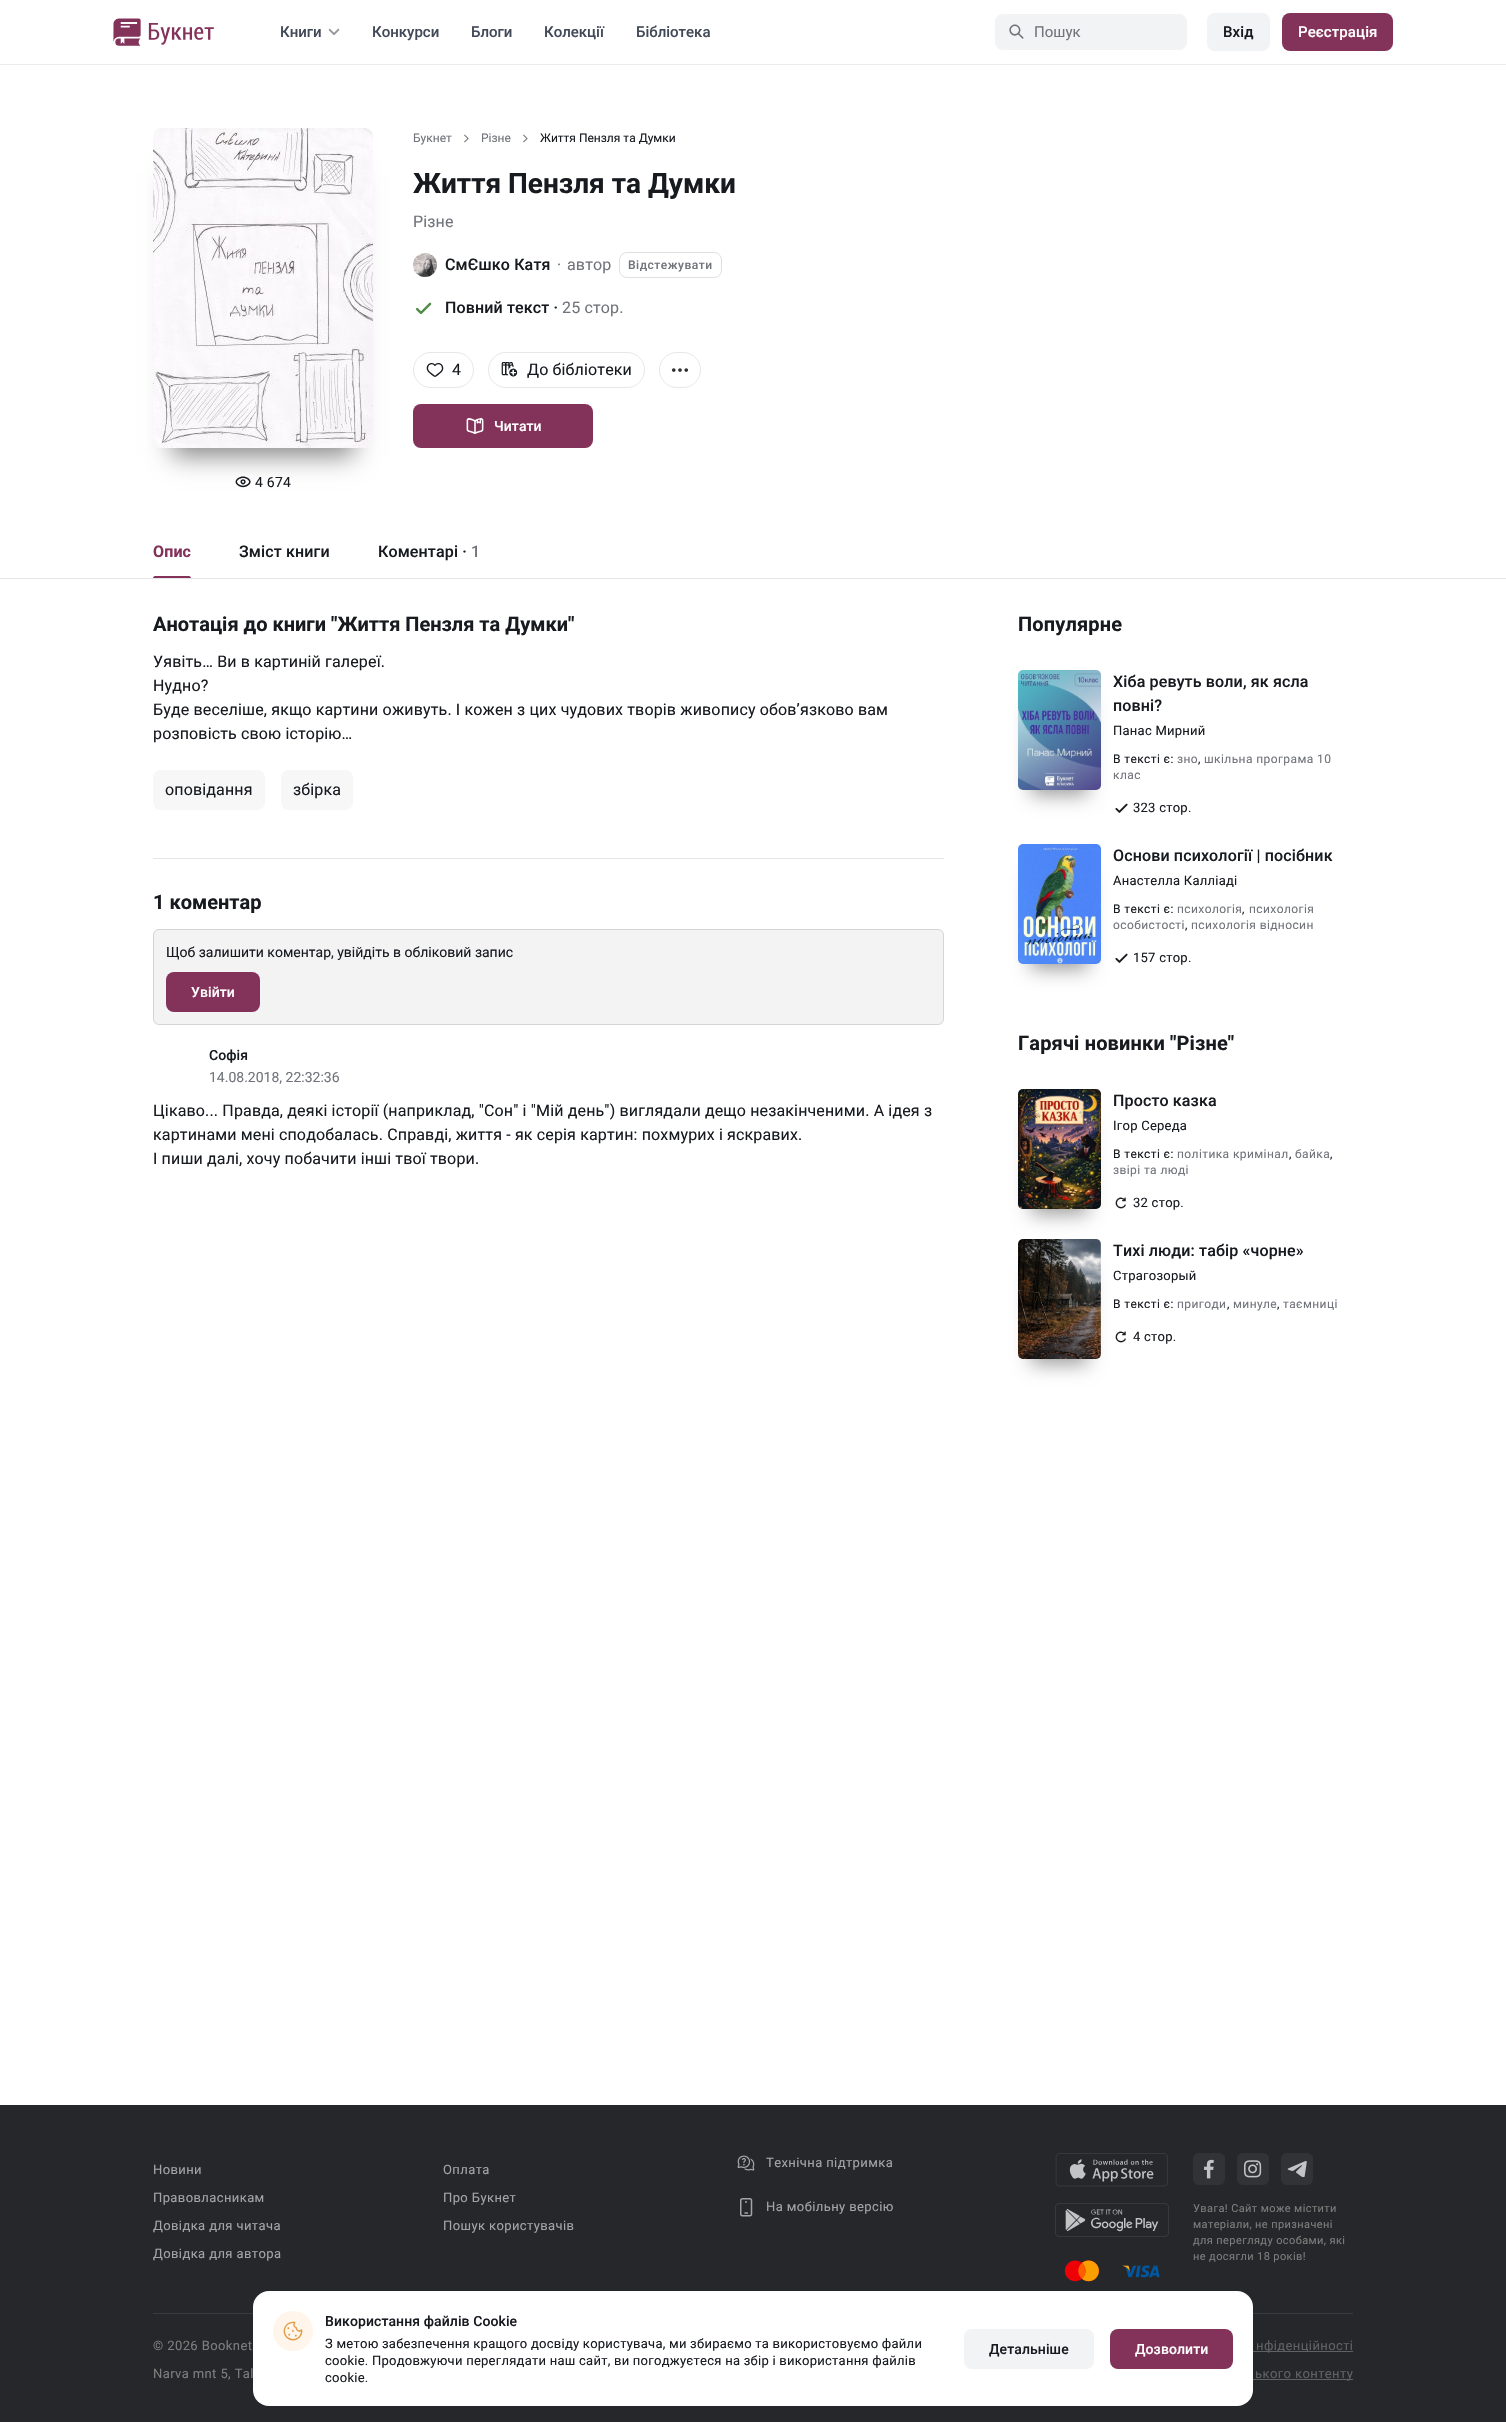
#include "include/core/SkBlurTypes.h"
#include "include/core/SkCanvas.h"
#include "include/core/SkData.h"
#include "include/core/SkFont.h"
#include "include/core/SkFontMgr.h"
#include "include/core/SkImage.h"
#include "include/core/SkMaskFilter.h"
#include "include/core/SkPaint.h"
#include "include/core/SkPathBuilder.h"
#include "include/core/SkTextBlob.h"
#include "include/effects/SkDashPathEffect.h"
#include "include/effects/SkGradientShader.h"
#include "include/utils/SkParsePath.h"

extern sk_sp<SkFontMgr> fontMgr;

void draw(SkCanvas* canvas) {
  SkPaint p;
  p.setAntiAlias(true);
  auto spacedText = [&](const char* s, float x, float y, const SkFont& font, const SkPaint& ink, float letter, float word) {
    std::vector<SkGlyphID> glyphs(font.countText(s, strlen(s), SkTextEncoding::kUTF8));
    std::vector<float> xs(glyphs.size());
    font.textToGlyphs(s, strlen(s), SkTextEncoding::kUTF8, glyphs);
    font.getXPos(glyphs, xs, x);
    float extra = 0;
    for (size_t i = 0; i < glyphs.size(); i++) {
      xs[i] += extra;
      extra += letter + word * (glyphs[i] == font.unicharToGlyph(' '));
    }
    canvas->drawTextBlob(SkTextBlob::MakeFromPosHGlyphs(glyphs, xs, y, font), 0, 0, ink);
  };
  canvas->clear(SK_ColorWHITE);
  p.setColor(SkColorSetRGB(235, 235, 235));
  canvas->drawRect(SkRect::MakeLTRB(0, 64, 1506, 65), p);
  canvas->drawImageRect(SkImages::DeferredFromEncodedData(SkData::MakeFromFileName("images/1.png")), SkRect::MakeLTRB(113, 18, 214, 46), SkSamplingOptions());
  canvas->drawImageRect(SkImages::DeferredFromEncodedData(SkData::MakeFromFileName("images/2.png")), SkRect::MakeLTRB(328, 28, 340, 35), SkSamplingOptions());
  p.setColor(SkColorSetRGB(242, 243, 245));
  canvas->drawRoundRect(SkRect::MakeLTRB(995, 14, 1187, 50), 8, 8, p);
  canvas->drawImageRect(SkImages::DeferredFromEncodedData(SkData::MakeFromFileName("images/3.png")), SkRect::MakeLTRB(1009, 24, 1024, 39), SkSamplingOptions());
  canvas->drawRoundRect(SkRect::MakeLTRB(1207, 13, 1270, 51), 8, 8, p);
  p.setColor(SkColorSetRGB(131, 50, 90));
  canvas->drawRoundRect(SkRect::MakeLTRB(1282, 13, 1393, 51), 8, 8, p);
  p.setColor(SkColorSetRGB(230, 230, 230));
  canvas->drawRect(SkRect::MakeLTRB(0, 578, 1506, 579), p);
  canvas->drawImageRect(SkImages::DeferredFromEncodedData(SkData::MakeFromFileName("images/4.png")), SkRect::MakeLTRB(464, 134, 469, 143), SkSamplingOptions());
  canvas->drawImageRect(SkImages::DeferredFromEncodedData(SkData::MakeFromFileName("images/4.png")), SkRect::MakeLTRB(523, 134, 528, 143), SkSamplingOptions());
  canvas->drawImageRect(SkImages::DeferredFromEncodedData(SkData::MakeFromFileName("images/5.png")), SkRect::MakeLTRB(413, 253, 437, 277), SkSamplingOptions());
  p.setStyle(SkPaint::kStroke_Style);
  p.setStrokeWidth(1);
  p.setColor(SkColorSetRGB(224, 224, 224));
  canvas->drawRoundRect(SkRect::MakeLTRB(619.5f, 252.5f, 721.5f, 277.5f), 7.5f, 7.5f, p);
  canvas->drawImageRect(SkImages::DeferredFromEncodedData(SkData::MakeFromFileName("images/6.png")), SkRect::MakeLTRB(416, 302, 432, 314), SkSamplingOptions());
  p.setColor(SkColorSetRGB(231, 231, 231));
  canvas->drawRoundRect(SkRect::MakeLTRB(413.5f, 352.5f, 473.5f, 387.5f), 17.5f, 17.5f, p);
  canvas->drawImageRect(SkImages::DeferredFromEncodedData(SkData::MakeFromFileName("images/7.png")), SkRect::MakeLTRB(426, 363, 444, 377), SkSamplingOptions());
  canvas->drawRoundRect(SkRect::MakeLTRB(488.5f, 352.5f, 644.5f, 387.5f), 17.5f, 17.5f, p);
  canvas->drawImageRect(SkImages::DeferredFromEncodedData(SkData::MakeFromFileName("images/8.png")), SkRect::MakeLTRB(501, 362, 518, 377), SkSamplingOptions());
  canvas->drawRoundRect(SkRect::MakeLTRB(659.5f, 352.5f, 700.5f, 387.5f), 17.5f, 17.5f, p);
  canvas->drawImageRect(SkImages::DeferredFromEncodedData(SkData::MakeFromFileName("images/9.png")), SkRect::MakeLTRB(671, 368, 689, 372), SkSamplingOptions());
  p.setStyle(SkPaint::kFill_Style);
  p.setColor(SkColorSetRGB(131, 50, 90));
  canvas->drawRoundRect(SkRect::MakeLTRB(413, 404, 593, 448), 8, 8, p);
  canvas->drawImageRect(SkImages::DeferredFromEncodedData(SkData::MakeFromFileName("images/10.png")), SkRect::MakeLTRB(466, 418, 484, 434), SkSamplingOptions());
  p.setColor(SkColorSetARGB(120, 0, 0, 0));
  p.setMaskFilter(SkMaskFilter::MakeBlur(kNormal_SkBlurStyle, 12));
  canvas->drawRect(SkRect::MakeLTRB(172, 174, 354, 456), p);
  p.setMaskFilter(nullptr);
  canvas->drawImageRect(SkImages::DeferredFromEncodedData(SkData::MakeFromFileName("images/11.png")), SkRect::MakeLTRB(153, 128, 373, 448), SkSamplingOptions());
  canvas->drawImageRect(SkImages::DeferredFromEncodedData(SkData::MakeFromFileName("images/12.png")), SkRect::MakeLTRB(235, 476, 251, 488), SkSamplingOptions());
  p.setColor(SkColorSetRGB(131, 50, 90));
  canvas->drawPath(SkPathBuilder().moveTo(155, 576).lineTo(189, 576).cubicTo(190, 576, 191, 577, 191, 578).lineTo(153, 578).cubicTo(153, 577, 154, 576, 155, 576).close().detach(), p);
  p.setColor(SkColorSetRGB(247, 247, 248));
  canvas->drawRoundRect(SkRect::MakeLTRB(153, 770, 265, 810), 8, 8, p);
  canvas->drawRoundRect(SkRect::MakeLTRB(281, 770, 353, 810), 8, 8, p);
  p.setColor(SkColorSetRGB(230, 230, 230));
  canvas->drawRect(SkRect::MakeLTRB(153, 858, 944, 859), p);
  p.setColor(SkColorSetRGB(243, 243, 244));
  canvas->drawRoundRect(SkRect::MakeLTRB(153, 929, 944, 1025), 6, 6, p);
  p.setStyle(SkPaint::kStroke_Style);
  p.setColor(SkColorSetARGB(31, 0, 0, 0));
  canvas->drawRoundRect(SkRect::MakeLTRB(153.5f, 929.5f, 943.5f, 1024.5f), 5.5f, 5.5f, p);
  p.setStyle(SkPaint::kFill_Style);
  p.setColor(SkColorSetRGB(131, 50, 90));
  canvas->drawRoundRect(SkRect::MakeLTRB(166, 972, 260, 1012), 8, 8, p);
  canvas->drawImageRect(SkImages::DeferredFromEncodedData(SkData::MakeFromFileName("images/14.png")), SkRect::MakeLTRB(1115, 803, 1128, 813), SkSamplingOptions());
  p.setColor(SkColorSetARGB(102, 0, 0, 0));
  p.setMaskFilter(SkMaskFilter::MakeBlur(kNormal_SkBlurStyle, 9.5f));
  canvas->drawRect(SkRect::MakeLTRB(1031, 701, 1088, 795), p);
  p.setMaskFilter(nullptr);
  canvas->drawImageRect(SkImages::DeferredFromEncodedData(SkData::MakeFromFileName("images/13.png")), SkRect::MakeLTRB(1018, 670, 1101, 790), SkSamplingOptions());
  canvas->drawImageRect(SkImages::DeferredFromEncodedData(SkData::MakeFromFileName("images/14.png")), SkRect::MakeLTRB(1115, 953, 1128, 963), SkSamplingOptions());
  p.setMaskFilter(SkMaskFilter::MakeBlur(kNormal_SkBlurStyle, 9.5f));
  canvas->drawRect(SkRect::MakeLTRB(1031, 875, 1088, 969), p);
  p.setMaskFilter(nullptr);
  canvas->drawImageRect(SkImages::DeferredFromEncodedData(SkData::MakeFromFileName("images/15.png")), SkRect::MakeLTRB(1018, 844, 1101, 964), SkSamplingOptions());
  canvas->drawImageRect(SkImages::DeferredFromEncodedData(SkData::MakeFromFileName("images/17.png")), SkRect::MakeLTRB(1115, 1197, 1126, 1209), SkSamplingOptions());
  p.setMaskFilter(SkMaskFilter::MakeBlur(kNormal_SkBlurStyle, 9.5f));
  canvas->drawRect(SkRect::MakeLTRB(1031, 1120, 1088, 1214), p);
  p.setMaskFilter(nullptr);
  canvas->drawImageRect(SkImages::DeferredFromEncodedData(SkData::MakeFromFileName("images/16.png")), SkRect::MakeLTRB(1018, 1089, 1101, 1209), SkSamplingOptions());
  canvas->drawImageRect(SkImages::DeferredFromEncodedData(SkData::MakeFromFileName("images/17.png")), SkRect::MakeLTRB(1115, 1331, 1126, 1343), SkSamplingOptions());
  p.setMaskFilter(SkMaskFilter::MakeBlur(kNormal_SkBlurStyle, 9.5f));
  canvas->drawRect(SkRect::MakeLTRB(1031, 1270, 1088, 1364), p);
  p.setMaskFilter(nullptr);
  canvas->drawImageRect(SkImages::DeferredFromEncodedData(SkData::MakeFromFileName("images/18.png")), SkRect::MakeLTRB(1018, 1239, 1101, 1359), SkSamplingOptions());
  p.setColor(SkColorSetRGB(37, 39, 42));
  canvas->drawRect(SkRect::MakeLTRB(0, 2105, 1506, 2422), p);
  p.setColor(SkColorSetRGB(57, 59, 62));
  canvas->drawRect(SkRect::MakeLTRB(153, 2313, 1353, 2314), p);
  canvas->drawImageRect(SkImages::DeferredFromEncodedData(SkData::MakeFromFileName("images/19.png")), SkRect::MakeLTRB(737, 2155, 755, 2171), SkSamplingOptions());
  canvas->drawImageRect(SkImages::DeferredFromEncodedData(SkData::MakeFromFileName("images/20.png")), SkRect::MakeLTRB(740, 2198, 753, 2217), SkSamplingOptions());
  canvas->drawImageRect(SkImages::DeferredFromEncodedData(SkData::MakeFromFileName("images/21.png")), SkRect::MakeLTRB(1055, 2153, 1168, 2187), SkSamplingOptions());
  canvas->drawImageRect(SkImages::DeferredFromEncodedData(SkData::MakeFromFileName("images/22.png")), SkRect::MakeLTRB(1055, 2203, 1169, 2237), SkSamplingOptions());
  canvas->drawImageRect(SkImages::DeferredFromEncodedData(SkData::MakeFromFileName("images/23.png")), SkRect::MakeLTRB(1064, 2260, 1099, 2282), SkSamplingOptions());
  canvas->drawImageRect(SkImages::DeferredFromEncodedData(SkData::MakeFromFileName("images/24.png")), SkRect::MakeLTRB(1122, 2265, 1160, 2278), SkSamplingOptions());
  p.setColor(SkColorSetRGB(50, 51, 54));
  canvas->drawRoundRect(SkRect::MakeLTRB(1193, 2153, 1225, 2185), 6, 6, p);
  canvas->drawImageRect(SkImages::DeferredFromEncodedData(SkData::MakeFromFileName("images/25.png")), SkRect::MakeLTRB(1204, 2159, 1214, 2179), SkSamplingOptions());
  canvas->drawRoundRect(SkRect::MakeLTRB(1237, 2153, 1269, 2185), 6, 6, p);
  canvas->drawImageRect(SkImages::DeferredFromEncodedData(SkData::MakeFromFileName("images/26.png")), SkRect::MakeLTRB(1244, 2160, 1262, 2178), SkSamplingOptions());
  canvas->drawRoundRect(SkRect::MakeLTRB(1281, 2153, 1313, 2185), 6, 6, p);
  canvas->drawImageRect(SkImages::DeferredFromEncodedData(SkData::MakeFromFileName("images/27.png")), SkRect::MakeLTRB(1287, 2161, 1307, 2177), SkSamplingOptions());
  p.setColor(SkColorSetRGB(96, 97, 99));
  canvas->drawRect(SkRect::MakeLTRB(1253, 2351, 1353, 2352), p);
  canvas->drawRect(SkRect::MakeLTRB(1253, 2379, 1353, 2380), p);
  p.setColor(SK_ColorWHITE);
  canvas->drawRoundRect(SkRect::MakeLTRB(253, 2291, 1253, 2406), 16, 16, p);
  p.setColor(SkColorSetRGB(255, 245, 234));
  canvas->drawCircle(293, 2331, 20, p);
  canvas->drawImageRect(SkImages::DeferredFromEncodedData(SkData::MakeFromFileName("images/28.png")), SkRect::MakeLTRB(283, 2321, 303, 2341), SkSamplingOptions());
  p.setColor(SkColorSetRGB(242, 243, 245));
  canvas->drawRoundRect(SkRect::MakeLTRB(964, 2329, 1094, 2369), 8, 8, p);
  p.setColor(SkColorSetRGB(131, 50, 90));
  canvas->drawRoundRect(SkRect::MakeLTRB(1110, 2329, 1233, 2369), 8, 8, p);
  SkFont font1(fontMgr->matchFamilyStyle("Roboto", SkFontStyle(500, SkFontStyle::kNormal_Width, SkFontStyle::kUpright_Slant)), 15);
  font1.setSubpixel(true);
  p.setColor(SkColorSetRGB(66, 73, 87));
  canvas->drawString("Книги", 280, 37, font1, p);
  canvas->drawString("Конкурси", 372, 37, font1, p);
  canvas->drawString("Блоги", 471, 37, font1, p);
  canvas->drawString("Колекції", 544, 37, font1, p);
  canvas->drawString("Бібліотека", 636, 37, font1, p);
  SkFont font2(fontMgr->matchFamilyStyle("Roboto", SkFontStyle::Normal()), 15);
  font2.setSubpixel(true);
  p.setColor(SkColorSetRGB(113, 116, 122));
  canvas->drawString("Пошук", 1034, 37, font2, p);
  p.setColor(SkColorSetRGB(23, 26, 31));
  spacedText("Вхід", 1223, 37, font1, p, 0.1f, 0);
  p.setColor(SK_ColorWHITE);
  spacedText("Реєстрація", 1298, 37, font1, p, 0.1f, 0);
  SkFont font3(fontMgr->matchFamilyStyle("Roboto", SkFontStyle::Normal()), 12);
  font3.setSubpixel(true);
  p.setColor(SkColorSetRGB(113, 116, 122));
  canvas->drawString("Букнет", 413, 142, font3, p);
  canvas->drawString("Різне", 481, 142, font3, p);
  p.setColor(SkColorSetRGB(23, 26, 31));
  canvas->drawString("Життя Пензля та Думки", 540, 142, font3, p);
  SkFont font4(fontMgr->matchFamilyStyle("Roboto", SkFontStyle::Bold()), 28);
  font4.setSubpixel(true);
  canvas->drawString("Життя Пензля та Думки", 413, 193, font4, p);
  SkFont font5(fontMgr->matchFamilyStyle("Roboto", SkFontStyle::Normal()), 16);
  font5.setSubpixel(true);
  p.setColor(SkColorSetRGB(113, 116, 122));
  spacedText("Різне", 413, 227, font5, p, 0.15f, 0);
  SkFont font6(fontMgr->matchFamilyStyle("Roboto", SkFontStyle(500, SkFontStyle::kNormal_Width, SkFontStyle::kUpright_Slant)), 16);
  font6.setSubpixel(true);
  p.setColor(SkColorSetRGB(23, 26, 31));
  spacedText("СмЄшко Катя", 445, 270, font6, p, 0.15f, 0);
  p.setColor(SkColorSetRGB(113, 116, 122));
  spacedText("·", 557, 270, font5, p, 0.15f, 0);
  spacedText("автор", 567, 270, font5, p, 0.15f, 0);
  SkFont font7(fontMgr->matchFamilyStyle("Roboto", SkFontStyle(500, SkFontStyle::kNormal_Width, SkFontStyle::kUpright_Slant)), 12);
  font7.setSubpixel(true);
  spacedText("Відстежувати", 628, 269, font7, p, 0.5f, 0);
  p.setColor(SkColorSetRGB(23, 26, 31));
  spacedText("Повний текст ·", 445, 313, font6, p, 0.15f, 0);
  p.setColor(SkColorSetRGB(113, 116, 122));
  spacedText("25 стор.", 562, 313, font5, p, 0.15f, 0);
  p.setColor(SkColorSetRGB(23, 26, 31));
  spacedText("4", 452, 375, font5, p, 0.15f, 0);
  spacedText("До бібліотеки", 527, 375, font5, p, 0.15f, 0);
  SkFont font8(fontMgr->matchFamilyStyle("Roboto", SkFontStyle(500, SkFontStyle::kNormal_Width, SkFontStyle::kUpright_Slant)), 14);
  font8.setSubpixel(true);
  p.setColor(SK_ColorWHITE);
  spacedText("Читати", 494, 431, font8, p, 0.1f, 0);
  SkFont font9(fontMgr->matchFamilyStyle("Roboto", SkFontStyle::Normal()), 14);
  font9.setSubpixel(true);
  p.setColor(SkColorSetRGB(23, 26, 31));
  spacedText("4 674", 255, 487, font9, p, 0.25f, 0);
  SkFont font10(fontMgr->matchFamilyStyle("Roboto", SkFontStyle::Bold()), 16);
  font10.setSubpixel(true);
  p.setColor(SkColorSetRGB(131, 50, 90));
  spacedText("Опис", 153, 557, font10, p, 0.15f, 0);
  p.setColor(SkColorSetRGB(23, 26, 31));
  spacedText("Зміст книги", 239, 557, font6, p, 0.15f, 0);
  spacedText("Коментарі ·", 378, 557, font6, p, 0.15f, 0);
  p.setColor(SkColorSetRGB(113, 116, 122));
  spacedText("1", 471, 557, font6, p, 0.15f, 0);
  SkFont font11(fontMgr->matchFamilyStyle("Roboto", SkFontStyle::Bold()), 20);
  font11.setSubpixel(true);
  p.setColor(SkColorSetRGB(23, 26, 31));
  canvas->drawString("Анотація до книги \"Життя Пензля та Думки\"", 153, 631, font11, p);
  spacedText("Уявіть… Ви в картиній галереї.", 153, 667, font5, p, 0.15f, 0);
  spacedText("Нудно?", 153, 691, font5, p, 0.15f, 0);
  spacedText("Буде веселіше, якщо картини оживуть. І кожен з цих чудових творів живопису обов’язково вам", 153, 715, font5, p, 0.15f, 0);
  spacedText("розповість свою історію…", 153, 739, font5, p, 0.15f, 0);
  spacedText("оповідання", 165, 795, font5, p, 0.15f, 0);
  spacedText("збірка", 293, 795, font5, p, 0.15f, 0);
  canvas->drawString("1 коментар", 153, 909, font11, p);
  canvas->drawString("Щоб залишити коментар, увійдіть в обліковий запис", 166, 957, font9, p);
  p.setColor(SK_ColorWHITE);
  spacedText("Увійти", 191, 997, font8, p, 0.1f, 0);
  p.setColor(SkColorSetRGB(23, 26, 31));
  spacedText("Софія", 209, 1060, font8, p, 0.1f, 0);
  p.setColor(SkColorSetRGB(113, 116, 122));
  canvas->drawString("14.08.2018, 22:32:36", 209, 1082, font9, p);
  p.setColor(SkColorSetRGB(23, 26, 31));
  spacedText("Цікаво... Правда, деякі історії (наприклад, \"Сон\" і \"Мій день\") виглядали дещо незакінченими. А ідея з", 153, 1116, font5, p, 0.15f, 0);
  spacedText("картинами мені сподобалась. Справді, життя - як серія картин: похмурих і яскравих.", 153, 1140, font5, p, 0.15f, 0);
  spacedText("І пиши далі, хочу побачити інші твої твори.", 153, 1164, font5, p, 0.15f, 0);
  spacedText("Популярне", 1018, 631, font11, p, 0.15f, 0);
  spacedText("Хіба ревуть воли, як ясла", 1113, 687, font6, p, 0.15f, 0);
  spacedText("повні?", 1113, 711, font6, p, 0.15f, 0);
  SkFont font12(fontMgr->matchFamilyStyle("Roboto", SkFontStyle::Normal()), 13);
  font12.setSubpixel(true);
  spacedText("Панас Мирний", 1113, 735, font12, p, 0.25f, 0);
  spacedText("В текcті є:", 1113, 763, font3, p, 0.4f, 0);
  p.setColor(SkColorSetRGB(113, 116, 122));
  spacedText("зно", 1177, 763, font3, p, 0.4f, 0);
  p.setColor(SkColorSetRGB(23, 26, 31));
  spacedText(",", 1198, 763, font3, p, 0.4f, 0);
  p.setColor(SkColorSetRGB(113, 116, 122));
  spacedText("шкільна програма 10", 1204, 763, font3, p, 0.4f, 0);
  spacedText("клас", 1113, 779, font3, p, 0.4f, 0);
  p.setColor(SkColorSetRGB(23, 26, 31));
  spacedText("323 стор.", 1133, 812, font12, p, 0.25f, 0);
  spacedText("Основи психології | посібник", 1113, 861, font6, p, 0.15f, 0);
  spacedText("Анастелла Калліаді", 1113, 885, font12, p, 0.25f, 0);
  spacedText("В текcті є:", 1113, 913, font3, p, 0.4f, 0);
  p.setColor(SkColorSetRGB(113, 116, 122));
  spacedText("психологія", 1177, 913, font3, p, 0.4f, 0);
  p.setColor(SkColorSetRGB(23, 26, 31));
  spacedText(",", 1242, 913, font3, p, 0.4f, 0);
  p.setColor(SkColorSetRGB(113, 116, 122));
  spacedText("психологія", 1249, 913, font3, p, 0.4f, 0);
  spacedText("особистості", 1113, 929, font3, p, 0.4f, 0);
  p.setColor(SkColorSetRGB(23, 26, 31));
  spacedText(",", 1185, 929, font3, p, 0.4f, 0);
  p.setColor(SkColorSetRGB(113, 116, 122));
  spacedText("психологія відносин", 1191, 929, font3, p, 0.4f, 0);
  p.setColor(SkColorSetRGB(23, 26, 31));
  spacedText("157 стор.", 1133, 962, font12, p, 0.25f, 0);
  spacedText("Гарячі новинки \"Різне\"", 1018, 1050, font11, p, 0.15f, 0);
  spacedText("Просто казка", 1113, 1106, font6, p, 0.15f, 0);
  spacedText("Ігор Середа", 1113, 1130, font12, p, 0.25f, 0);
  spacedText("В текcті є:", 1113, 1158, font3, p, 0.4f, 0);
  p.setColor(SkColorSetRGB(113, 116, 122));
  spacedText("політика кримінал", 1177, 1158, font3, p, 0.4f, 0);
  p.setColor(SkColorSetRGB(23, 26, 31));
  spacedText(",", 1289, 1158, font3, p, 0.4f, 0);
  p.setColor(SkColorSetRGB(113, 116, 122));
  spacedText("байка", 1295, 1158, font3, p, 0.4f, 0);
  p.setColor(SkColorSetRGB(23, 26, 31));
  spacedText(",", 1330, 1158, font3, p, 0.4f, 0);
  p.setColor(SkColorSetRGB(113, 116, 122));
  spacedText("звірі та люді", 1113, 1174, font3, p, 0.4f, 0);
  p.setColor(SkColorSetRGB(23, 26, 31));
  spacedText("32 стор.", 1133, 1207, font12, p, 0.25f, 0);
  spacedText("Тихі люди: табір «чорне»", 1113, 1256, font6, p, 0.15f, 0);
  spacedText("Страгозорый", 1113, 1280, font12, p, 0.25f, 0);
  spacedText("В текcті є:", 1113, 1308, font3, p, 0.4f, 0);
  p.setColor(SkColorSetRGB(113, 116, 122));
  spacedText("пригоди", 1177, 1308, font3, p, 0.4f, 0);
  p.setColor(SkColorSetRGB(23, 26, 31));
  spacedText(",", 1227, 1308, font3, p, 0.4f, 0);
  p.setColor(SkColorSetRGB(113, 116, 122));
  spacedText("минуле", 1233, 1308, font3, p, 0.4f, 0);
  p.setColor(SkColorSetRGB(23, 26, 31));
  spacedText(",", 1277, 1308, font3, p, 0.4f, 0);
  p.setColor(SkColorSetRGB(113, 116, 122));
  spacedText("таємниці", 1283, 1308, font3, p, 0.4f, 0);
  p.setColor(SkColorSetRGB(23, 26, 31));
  spacedText("4 стор.", 1133, 1341, font12, p, 0.25f, 0);
  p.setColor(SkColorSetRGB(163, 164, 165));
  spacedText("Новини", 153, 2174, font12, p, 0.4f, 0);
  spacedText("Правовласникам", 153, 2202, font12, p, 0.4f, 0);
  spacedText("Довідка для читача", 153, 2230, font12, p, 0.4f, 0);
  spacedText("Довідка для автора", 153, 2258, font12, p, 0.4f, 0);
  spacedText("Оплата", 443, 2174, font12, p, 0.4f, 0);
  spacedText("Про Букнет", 443, 2202, font12, p, 0.4f, 0);
  spacedText("Пошук користувачів", 443, 2230, font12, p, 0.4f, 0);
  spacedText("Технічна підтримка", 766, 2167, font12, p, 0.4f, 0);
  spacedText("На мобільну версію", 766, 2211, font12, p, 0.4f, 0);
  SkFont font13(fontMgr->matchFamilyStyle("Roboto", SkFontStyle::Normal()), 11);
  font13.setSubpixel(true);
  p.setColor(SkColorSetRGB(125, 125, 125));
  spacedText("Увага! Сайт може містити", 1193, 2212, font13, p, 0.4f, 0);
  spacedText("матеріали, не призначені", 1193, 2228, font13, p, 0.4f, 0);
  spacedText("для перегляду особами, які", 1193, 2244, font13, p, 0.4f, 0);
  spacedText("не досягли 18 років!", 1193, 2260, font13, p, 0.4f, 0);
  spacedText("© 2026 Booknet", 153, 2350, font12, p, 0.4f, 0);
  spacedText("Narva mnt 5, Tal", 153, 2378, font12, p, 0.4f, 0);
  p.setColor(SkColorSetRGB(96, 97, 99));
  spacedText("нфіденційності", 1256, 2350, font12, p, 0.4f, 0);
  spacedText("ького контенту", 1255, 2378, font12, p, 0.4f, 0);
  p.setColor(SkColorSetRGB(23, 26, 31));
  spacedText("Використання файлів Cookie", 325, 2326, font8, p, 0.1f, 0);
  spacedText("З метою забезпечення кращого досвіду користувача, ми збираємо та використовуємо файли", 325, 2348, font12, p, 0.25f, 0);
  spacedText("cookie. Продовжуючи переглядати наш сайт, ви погоджуєтеся на збір і використання файлів", 325, 2365, font12, p, 0.25f, 0);
  spacedText("cookie.", 325, 2382, font12, p, 0.25f, 0);
  spacedText("Детальніше", 989, 2354, font8, p, 0.1f, 0);
  p.setColor(SK_ColorWHITE);
  spacedText("Дозволити", 1135, 2354, font8, p, 0.1f, 0);
}
